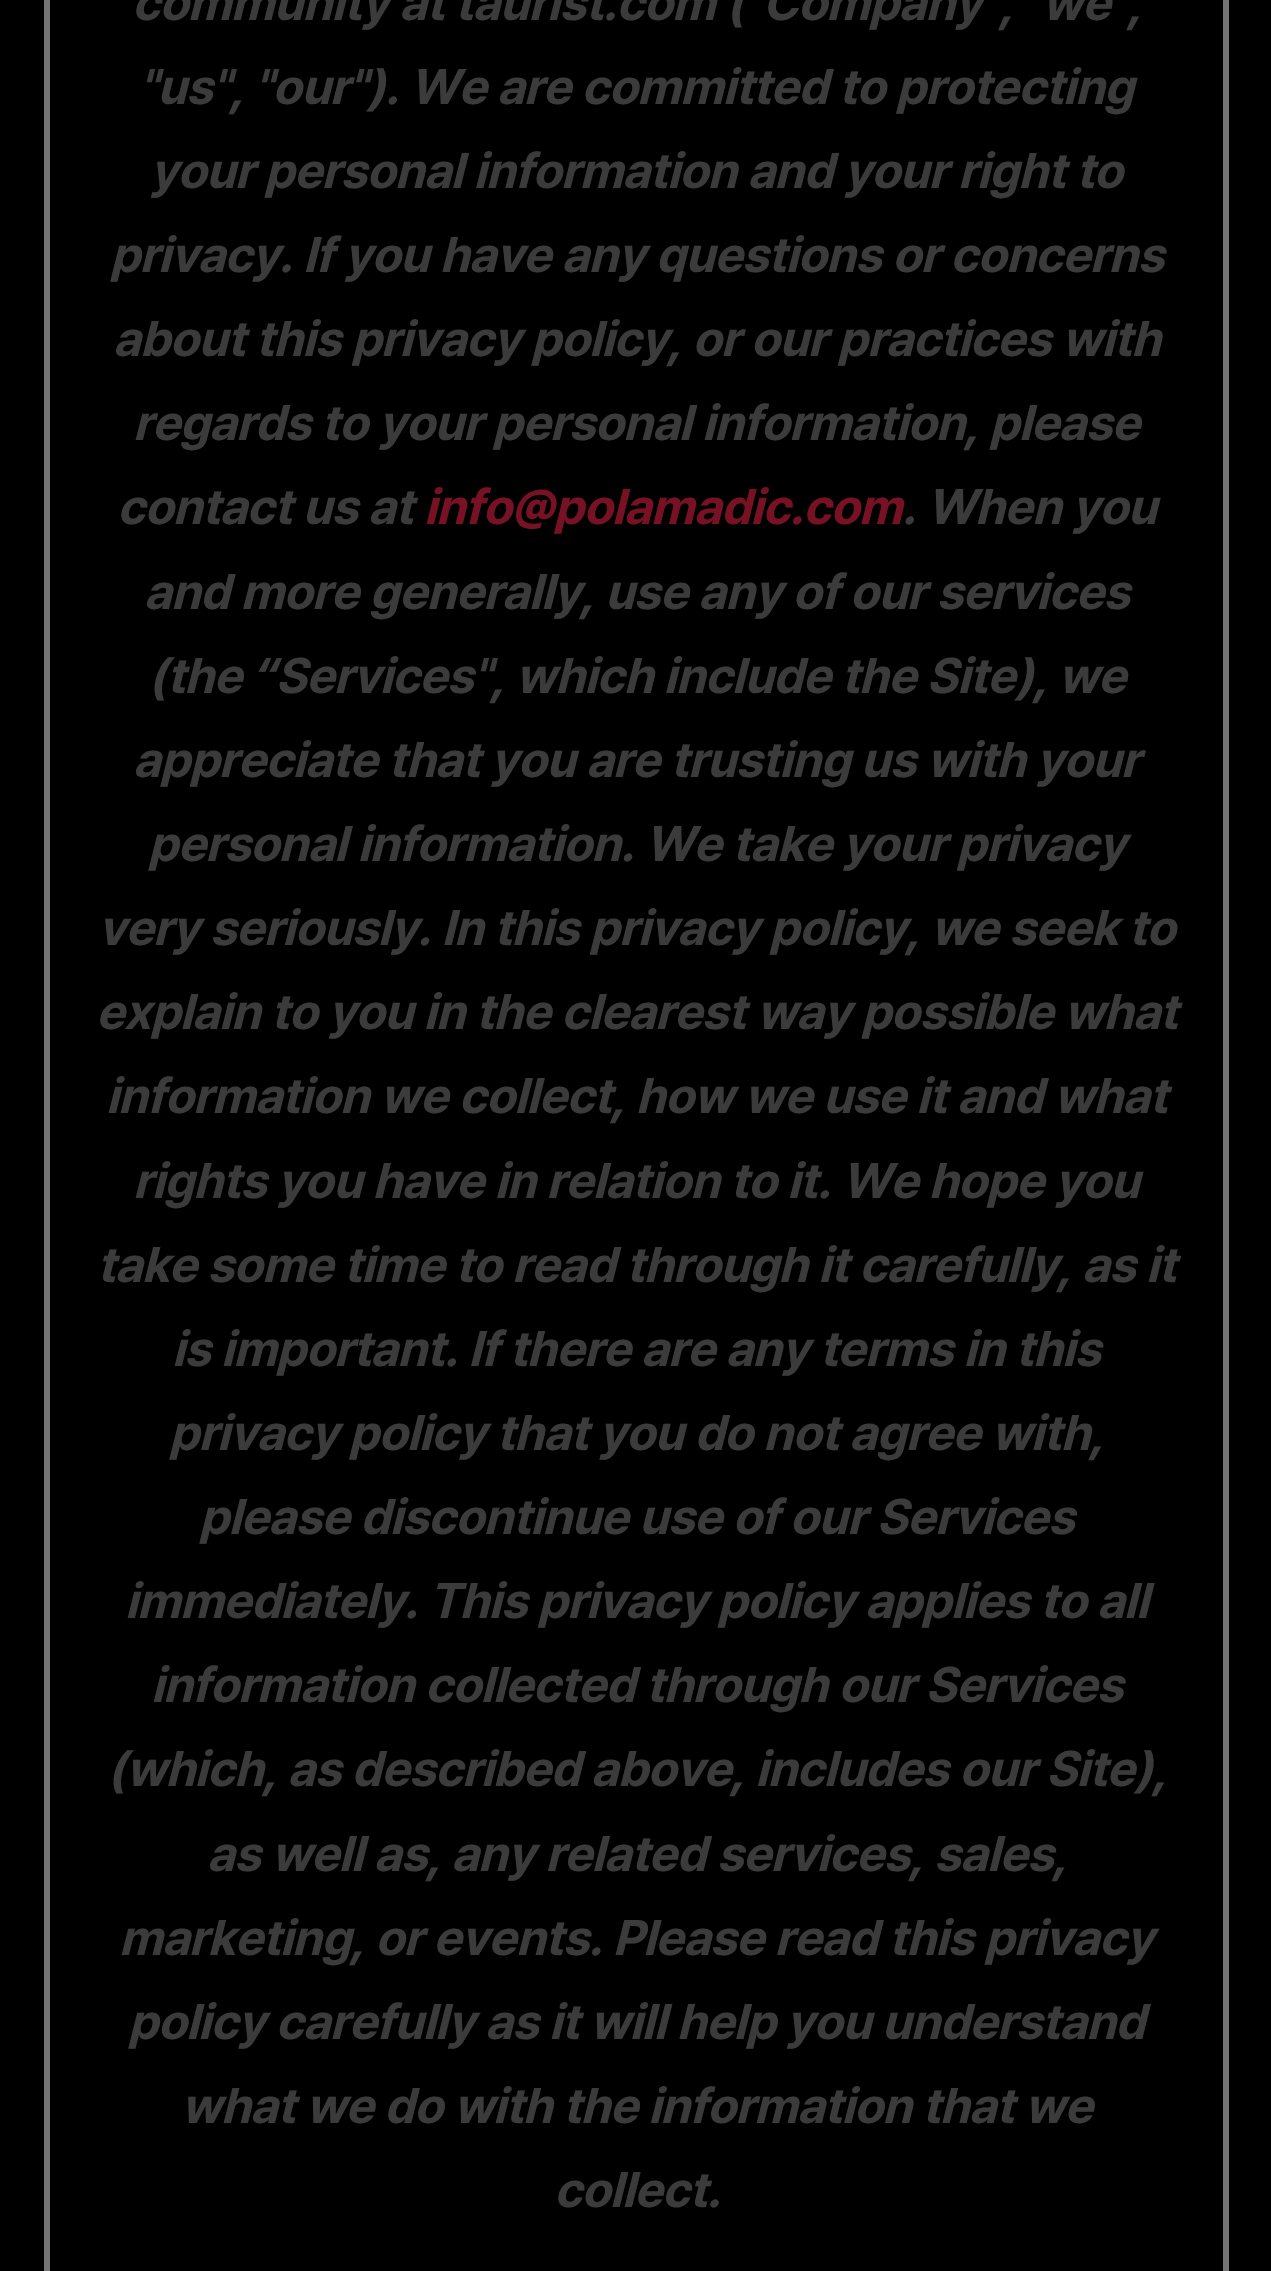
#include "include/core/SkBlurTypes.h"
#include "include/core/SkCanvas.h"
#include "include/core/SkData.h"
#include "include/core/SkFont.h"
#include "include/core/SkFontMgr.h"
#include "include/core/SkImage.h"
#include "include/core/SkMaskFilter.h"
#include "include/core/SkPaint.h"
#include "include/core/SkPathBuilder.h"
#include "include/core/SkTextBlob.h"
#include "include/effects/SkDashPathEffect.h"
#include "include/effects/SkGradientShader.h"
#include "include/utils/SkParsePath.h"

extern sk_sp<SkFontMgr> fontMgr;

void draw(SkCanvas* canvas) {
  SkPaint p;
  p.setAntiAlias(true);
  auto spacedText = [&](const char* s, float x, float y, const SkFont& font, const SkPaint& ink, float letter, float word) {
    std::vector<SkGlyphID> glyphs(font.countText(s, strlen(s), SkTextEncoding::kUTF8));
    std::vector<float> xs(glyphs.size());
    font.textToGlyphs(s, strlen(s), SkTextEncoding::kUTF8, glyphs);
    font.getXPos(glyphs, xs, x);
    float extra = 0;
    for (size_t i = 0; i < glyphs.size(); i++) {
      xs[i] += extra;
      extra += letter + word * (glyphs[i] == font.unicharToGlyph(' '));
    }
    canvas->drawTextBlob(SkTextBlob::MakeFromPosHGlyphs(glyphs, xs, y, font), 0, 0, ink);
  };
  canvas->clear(SK_ColorBLACK);
  p.setStyle(SkPaint::kStroke_Style);
  p.setStrokeWidth(6);
  p.setColor(SkColorSetRGB(116, 116, 116));
  canvas->drawRect(SkRect::MakeLTRB(47, -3, 1226, 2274), p);
  SkFont font1(fontMgr->matchFamilyStyle("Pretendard", SkFontStyle::BoldItalic()), 49.5f);
  font1.setSubpixel(true);
  p.setStyle(SkPaint::kFill_Style);
  p.setColor(SkColorSetRGB(59, 59, 59));
  spacedText("community at taurist.com (\"Company\", \"we\",", 132, 20, font1, p, -0.5f, 0);
  spacedText("\"us\", \"our\"). We are committed to protecting", 139, 104, font1, p, -0.5f, 0);
  spacedText("your personal information and your right to", 150, 188, font1, p, -0.5f, 0);
  spacedText("privacy. If you have any questions or concerns", 110, 272, font1, p, -0.5f, 0);
  spacedText("about this privacy policy, or our practices with", 113, 356, font1, p, -0.5f, 0);
  spacedText("regards to your personal information, please", 133, 440, font1, p, -0.5f, 0);
  spacedText("contact us at", 117, 524, font1, p, -0.5f, 0);
  p.setColor(SkColorSetRGB(119, 17, 35));
  spacedText("info@polamadic.com", 424, 524, font1, p, -0.5f, 0);
  p.setColor(SkColorSetRGB(59, 59, 59));
  spacedText(". When you", 902, 524, font1, p, -0.5f, 0);
  spacedText("and more generally, use any of our services", 144, 609, font1, p, -0.5f, 0);
  spacedText("(the “Services\", which include the Site), we", 148, 693, font1, p, -0.5f, 0);
  spacedText("appreciate that you are trusting us with your", 133, 777, font1, p, -0.5f, 0);
  spacedText("personal information. We take your privacy", 148, 861, font1, p, -0.5f, 0);
  spacedText("very seriously. In this privacy policy, we seek to", 98, 945, font1, p, -0.5f, 0);
  spacedText("explain to you in the clearest way possible what", 96, 1029, font1, p, -0.5f, 0);
  spacedText("information we collect, how we use it and what", 106, 1113, font1, p, -0.5f, 0);
  spacedText("rights you have in relation to it. We hope you", 133, 1198, font1, p, -0.5f, 0);
  spacedText("take some time to read through it carefully, as it", 97, 1282, font1, p, -0.5f, 0);
  spacedText("is important. If there are any terms in this", 172, 1366, font1, p, -0.5f, 0);
  spacedText("privacy policy that you do not agree with,", 169, 1450, font1, p, -0.5f, 0);
  spacedText("please discontinue use of our Services", 199, 1534, font1, p, -0.5f, 0);
  spacedText("immediately. This privacy policy applies to all", 125, 1618, font1, p, -0.5f, 0);
  spacedText("information collected through our Services", 151, 1702, font1, p, -0.5f, 0);
  spacedText("(which, as described above, includes our Site),", 107, 1786, font1, p, -0.5f, 0);
  spacedText("as well as, any related services, sales,", 207, 1871, font1, p, -0.5f, 0);
  spacedText("marketing, or events. Please read this privacy", 119, 1955, font1, p, -0.5f, 0);
  spacedText("policy carefully as it will help you understand", 128, 2039, font1, p, -0.5f, 0);
  spacedText("what we do with the information that we", 181, 2123, font1, p, -0.5f, 0);
  spacedText("collect.", 554, 2207, font1, p, -0.5f, 0);
}
